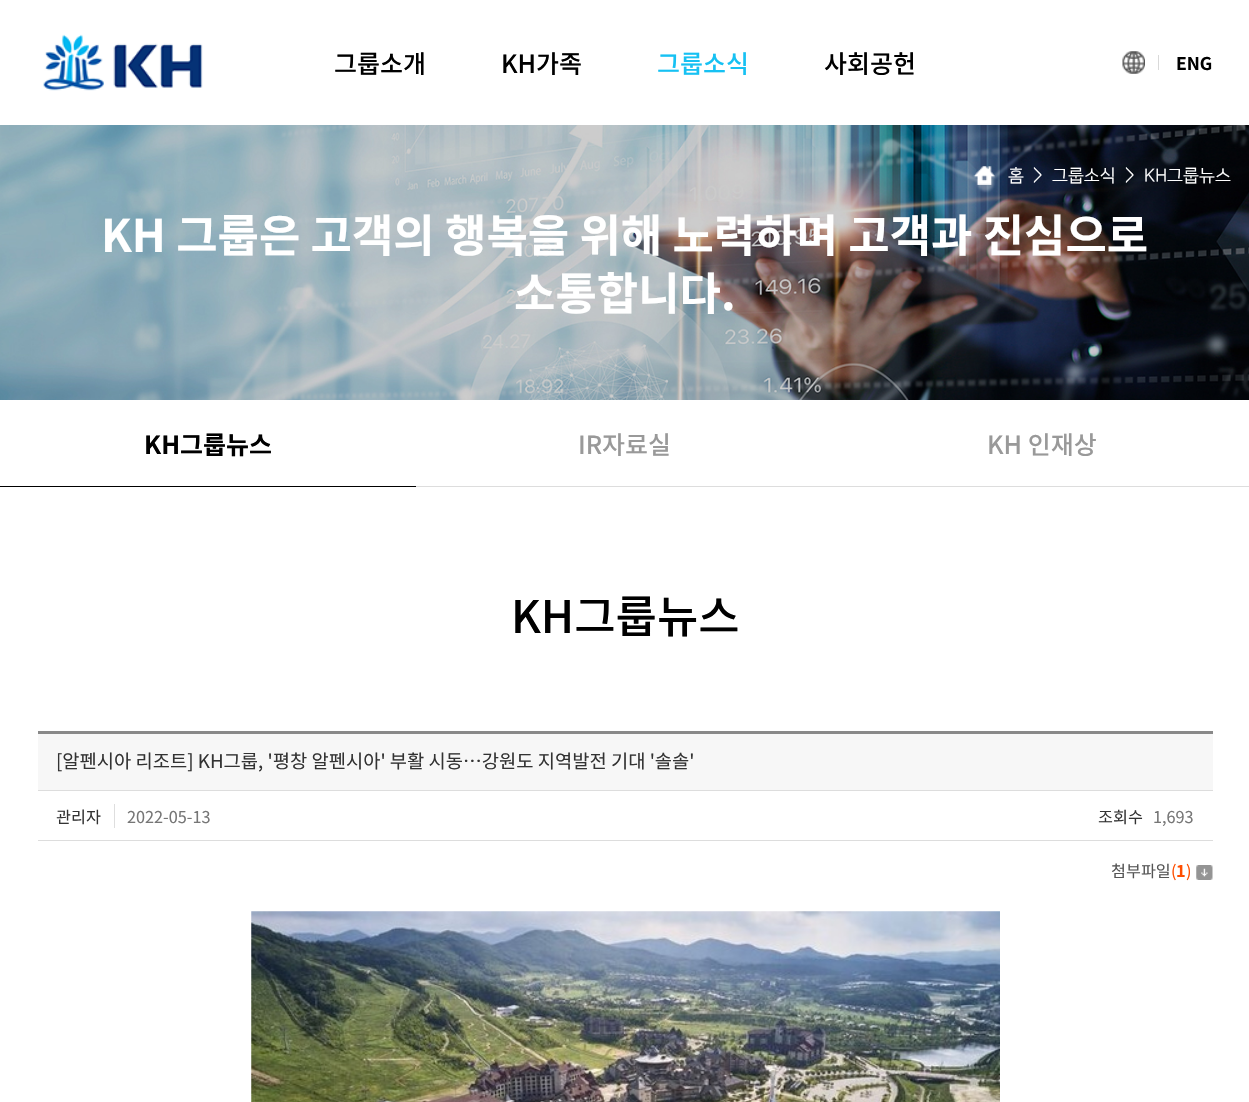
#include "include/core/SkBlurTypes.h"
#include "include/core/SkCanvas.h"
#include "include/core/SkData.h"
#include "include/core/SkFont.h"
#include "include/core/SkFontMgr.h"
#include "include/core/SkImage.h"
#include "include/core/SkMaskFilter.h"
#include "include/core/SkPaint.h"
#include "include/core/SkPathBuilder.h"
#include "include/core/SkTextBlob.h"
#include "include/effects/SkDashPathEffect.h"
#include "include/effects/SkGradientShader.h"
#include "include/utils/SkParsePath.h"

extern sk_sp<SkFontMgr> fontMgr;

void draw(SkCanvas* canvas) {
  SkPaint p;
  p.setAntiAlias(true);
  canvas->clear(SK_ColorWHITE);
  canvas->drawImageRect(SkImages::DeferredFromEncodedData(SkData::MakeFromFileName("images/1.png")), SkRect::MakeLTRB(43, 34, 203, 91), SkSamplingOptions());
  canvas->drawImageRect(SkImages::DeferredFromEncodedData(SkData::MakeFromFileName("images/2.png")), SkRect::MakeLTRB(1122, 51, 1145, 74), SkSamplingOptions());
  p.setColor(SkColorSetRGB(217, 217, 217));
  canvas->drawRect(SkRect::MakeLTRB(1158, 55, 1159, 70), p);
  canvas->drawImageRect(SkImages::DeferredFromEncodedData(SkData::MakeFromFileName("images/4.png")), SkRect::MakeLTRB(0, 125, 1249, 400), SkSamplingOptions());
  canvas->drawImageRect(SkImages::DeferredFromEncodedData(SkData::MakeFromFileName("images/3.png")), SkRect::MakeLTRB(973, 166, 995, 185), SkSamplingOptions());
  p.setColor(SK_ColorBLACK);
  canvas->drawRect(SkRect::MakeLTRB(0, 486, 416, 487), p);
  p.setColor(SkColorSetRGB(221, 221, 221));
  canvas->drawRect(SkRect::MakeLTRB(416, 486, 1249, 487), p);
  p.setColor(SkColorSetRGB(137, 137, 137));
  canvas->drawRect(SkRect::MakeLTRB(38, 731, 1213, 734), p);
  p.setColor(SkColorSetRGB(247, 247, 247));
  canvas->drawRect(SkRect::MakeLTRB(38, 734, 1213, 790), p);
  p.setColor(SkColorSetRGB(221, 221, 221));
  canvas->drawRect(SkRect::MakeLTRB(38, 790, 1213, 791), p);
  canvas->drawRect(SkRect::MakeLTRB(38, 840, 1213, 841), p);
  p.setColor(SkColorSetRGB(222, 222, 222));
  canvas->drawRect(SkRect::MakeLTRB(114, 804, 115, 828), p);
  canvas->drawImageRect(SkImages::DeferredFromEncodedData(SkData::MakeFromFileName("images/5.png")), SkRect::MakeLTRB(1196, 865, 1213, 880), SkSamplingOptions());
  canvas->drawImageRect(SkImages::DeferredFromEncodedData(SkData::MakeFromFileName("images/6.png")), SkRect::MakeLTRB(251, 911, 1000, 1102), SkSamplingOptions());
  SkFont font1(fontMgr->matchFamilyStyle("Noto Sans KR", SkFontStyle(500, SkFontStyle::kNormal_Width, SkFontStyle::kUpright_Slant)), 25);
  font1.setSubpixel(true);
  p.setColor(SK_ColorBLACK);
  canvas->drawString("그룹소개", 334, 73, font1, p);
  canvas->drawString("KH가족", 501, 73, font1, p);
  p.setColor(SkColorSetRGB(22, 193, 243));
  canvas->drawString("그룹소식", 657, 73, font1, p);
  p.setColor(SK_ColorBLACK);
  canvas->drawString("사회공헌", 824, 73, font1, p);
  SkFont font2(fontMgr->matchFamilyStyle("Noto Sans KR", SkFontStyle::Bold()), 17.5f);
  font2.setSubpixel(true);
  canvas->drawString("ENG", 1176, 70, font2, p);
  SkFont font3(fontMgr->matchFamilyStyle("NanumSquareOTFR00", SkFontStyle::Normal()), 17.5f);
  font3.setSubpixel(true);
  p.setColor(SK_ColorWHITE);
  canvas->drawString("홈", 1008, 181, font3, p);
  SkFont font4(fontMgr->matchFamilyStyle("NanumGothic", SkFontStyle::Normal()), 17.5f);
  font4.setSubpixel(true);
  canvas->drawString(">", 1033, 181, font4, p);
  canvas->drawString("그룹소식", 1052, 181, font3, p);
  canvas->drawString(">", 1125, 181, font4, p);
  canvas->drawString("KH그룹뉴스", 1144, 181, font3, p);
  SkFont font5(fontMgr->matchFamilyStyle("Noto Sans KR", SkFontStyle::Bold()), 45);
  font5.setSubpixel(true);
  canvas->drawString("KH 그룹은 고객의 행복을 위해 노력하며 고객과 진심으로", 101, 252, font5, p);
  canvas->drawString("소통합니다.", 514, 310, font5, p);
  SkFont font6(fontMgr->matchFamilyStyle("Noto Sans KR", SkFontStyle::Bold()), 25);
  font6.setSubpixel(true);
  p.setColor(SK_ColorBLACK);
  canvas->drawString("KH그룹뉴스", 144, 454, font6, p);
  p.setColor(SkColorSetRGB(153, 153, 153));
  canvas->drawString("IR자료실", 578, 454, font1, p);
  canvas->drawString("KH 인재상", 987, 454, font1, p);
  SkFont font7(fontMgr->matchFamilyStyle("Noto Sans KR", SkFontStyle(500, SkFontStyle::kNormal_Width, SkFontStyle::kUpright_Slant)), 45);
  font7.setSubpixel(true);
  p.setColor(SK_ColorBLACK);
  canvas->drawString("KH그룹뉴스", 511, 633, font7, p);
  SkFont font8(fontMgr->matchFamilyStyle("Noto Sans KR", SkFontStyle::Normal()), 18.75f);
  font8.setSubpixel(true);
  p.setColor(SkColorSetRGB(51, 51, 51));
  canvas->drawString("[알펜시아 리조트] KH그룹, '평창 알펜시아' 부활 시동…강원도 지역발전 기대 '솔솔'", 56, 768, font8, p);
  SkFont font9(fontMgr->matchFamilyStyle("Noto Sans KR", SkFontStyle::Normal()), 16.25f);
  font9.setSubpixel(true);
  canvas->drawString("관리자", 56, 823, font9, p);
  p.setColor(SkColorSetRGB(118, 118, 118));
  canvas->drawString("2022-05-13", 127, 823, font9, p);
  p.setColor(SkColorSetRGB(51, 51, 51));
  canvas->drawString("조회수", 1098, 823, font9, p);
  p.setColor(SkColorSetRGB(118, 118, 118));
  canvas->drawString("1,693", 1153, 823, font9, p);
  p.setColor(SkColorSetRGB(85, 85, 85));
  canvas->drawString("첨부파일", 1111, 877, font9, p);
  p.setColor(SkColorSetRGB(255, 78, 0));
  canvas->drawString("(", 1171, 877, font9, p);
  SkFont font10(fontMgr->matchFamilyStyle("Noto Sans KR", SkFontStyle::Bold()), 16.25f);
  font10.setSubpixel(true);
  canvas->drawString("1", 1176, 877, font10, p);
  canvas->drawString(")", 1186, 877, font9, p);
}
